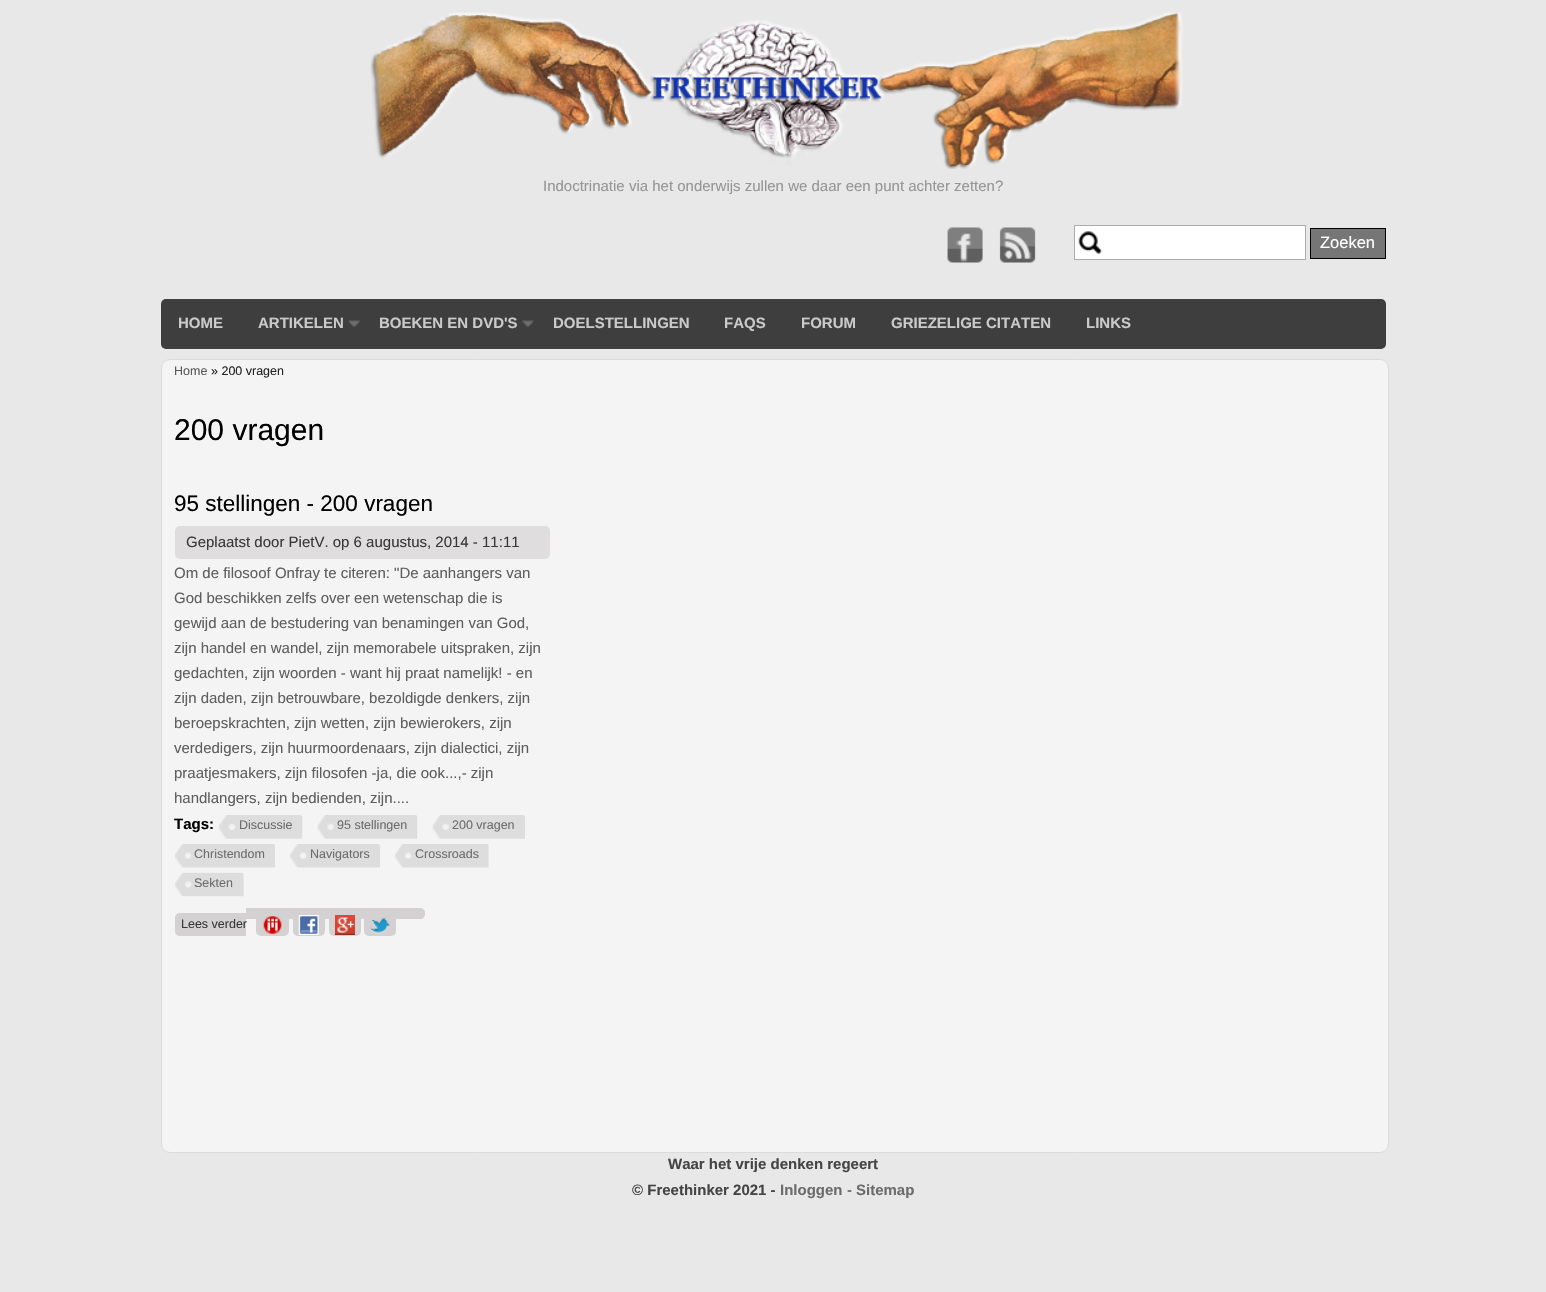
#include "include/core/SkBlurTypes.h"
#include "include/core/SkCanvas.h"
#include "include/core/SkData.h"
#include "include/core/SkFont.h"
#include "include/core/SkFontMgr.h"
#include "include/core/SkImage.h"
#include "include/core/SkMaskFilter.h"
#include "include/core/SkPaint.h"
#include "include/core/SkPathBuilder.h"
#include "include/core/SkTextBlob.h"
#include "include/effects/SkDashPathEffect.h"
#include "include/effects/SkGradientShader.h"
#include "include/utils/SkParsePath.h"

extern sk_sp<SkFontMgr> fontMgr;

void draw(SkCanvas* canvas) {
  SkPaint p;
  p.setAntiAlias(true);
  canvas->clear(SkColorSetRGB(232, 232, 232));
  canvas->drawImageRect(SkImages::DeferredFromEncodedData(SkData::MakeFromFileName("images/1.png")), SkRect::MakeLTRB(370, 12, 1183, 169), SkSamplingOptions());
  canvas->drawImageRect(SkImages::DeferredFromEncodedData(SkData::MakeFromFileName("images/2.png")), SkRect::MakeLTRB(947, 227, 983, 263), SkSamplingOptions());
  canvas->drawImageRect(SkImages::DeferredFromEncodedData(SkData::MakeFromFileName("images/3.png")), SkRect::MakeLTRB(999, 227, 1036, 263), SkSamplingOptions());
  p.setColor(SK_ColorWHITE);
  canvas->drawRect(SkRect::MakeLTRB(1075, 226, 1305, 259), p);
  canvas->drawImageRect(SkImages::DeferredFromEncodedData(SkData::MakeFromFileName("images/4.png")), SkRect::MakeLTRB(1078, 231, 1102, 254), SkSamplingOptions());
  p.setStyle(SkPaint::kStroke_Style);
  p.setStrokeWidth(1);
  p.setColor(SkColorSetRGB(172, 172, 172));
  canvas->drawRect(SkRect::MakeLTRB(1074.5f, 225.5f, 1305.5f, 259.5f), p);
  p.setStyle(SkPaint::kFill_Style);
  p.setColor(SkColorSetRGB(118, 118, 118));
  canvas->drawRect(SkRect::MakeLTRB(1310.5f, 228.5f, 1385.5f, 258.5f), p);
  p.setStyle(SkPaint::kStroke_Style);
  p.setColor(SK_ColorBLACK);
  canvas->drawRect(SkRect::MakeLTRB(1310.5f, 228.5f, 1385.5f, 258.5f), p);
  p.setStyle(SkPaint::kFill_Style);
  p.setColor(SkColorSetRGB(62, 62, 62));
  canvas->drawRoundRect(SkRect::MakeLTRB(161, 299, 1386, 349), 5, 5, p);
  canvas->drawImageRect(SkImages::DeferredFromEncodedData(SkData::MakeFromFileName("images/5.png")), SkRect::MakeLTRB(348, 320, 360, 328), SkSamplingOptions());
  canvas->drawImageRect(SkImages::DeferredFromEncodedData(SkData::MakeFromFileName("images/6.png")), SkRect::MakeLTRB(522, 320, 534, 328), SkSamplingOptions());
  p.setColor(SkColorSetRGB(244, 244, 244));
  canvas->drawRoundRect(SkRect::MakeLTRB(161.5f, 359.5f, 1388.5f, 1152.5f), 8.5f, 8.5f, p);
  p.setStyle(SkPaint::kStroke_Style);
  p.setColor(SkColorSetRGB(219, 219, 219));
  canvas->drawRoundRect(SkRect::MakeLTRB(161.5f, 359.5f, 1388.5f, 1152.5f), 8.5f, 8.5f, p);
  p.setStyle(SkPaint::kFill_Style);
  p.setColor(SkColorSetRGB(223, 221, 221));
  canvas->drawRoundRect(SkRect::MakeLTRB(175, 526, 550, 559), 5, 5, p);
  canvas->drawImageRect(SkImages::DeferredFromEncodedData(SkData::MakeFromFileName("images/7.png")), SkRect::MakeLTRB(219, 815, 303, 839), SkSamplingOptions());
  canvas->drawImageRect(SkImages::DeferredFromEncodedData(SkData::MakeFromFileName("images/8.png")), SkRect::MakeLTRB(317, 815, 418, 839), SkSamplingOptions());
  canvas->drawImageRect(SkImages::DeferredFromEncodedData(SkData::MakeFromFileName("images/9.png")), SkRect::MakeLTRB(432, 815, 525, 839), SkSamplingOptions());
  canvas->drawImageRect(SkImages::DeferredFromEncodedData(SkData::MakeFromFileName("images/10.png")), SkRect::MakeLTRB(175, 844, 275, 868), SkSamplingOptions());
  canvas->drawImageRect(SkImages::DeferredFromEncodedData(SkData::MakeFromFileName("images/11.png")), SkRect::MakeLTRB(290, 844, 380, 868), SkSamplingOptions());
  canvas->drawImageRect(SkImages::DeferredFromEncodedData(SkData::MakeFromFileName("images/12.png")), SkRect::MakeLTRB(395, 844, 489, 868), SkSamplingOptions());
  canvas->drawImageRect(SkImages::DeferredFromEncodedData(SkData::MakeFromFileName("images/13.png")), SkRect::MakeLTRB(175, 872, 244, 897), SkSamplingOptions());
  p.setColor(SkColorSetRGB(211, 209, 209));
  canvas->drawPath(SkPathBuilder().moveTo(180, 913).lineTo(246, 913).lineTo(246, 936).lineTo(180, 936).cubicTo(177, 936, 175, 934, 175, 931).lineTo(175, 918).cubicTo(175, 915, 177, 913, 180, 913).close().detach(), p);
  canvas->drawPath(SkPathBuilder().moveTo(246, 908).lineTo(420, 908).cubicTo(423, 908, 425, 910, 425, 913).lineTo(425, 914).cubicTo(425, 917, 423, 919, 420, 919).lineTo(246, 919).close().detach(), p);
  canvas->drawRoundRect(SkRect::MakeLTRB(256, 913, 289, 936), 5, 5, p);
  canvas->drawRoundRect(SkRect::MakeLTRB(293, 913, 325, 936), 5, 5, p);
  canvas->drawRoundRect(SkRect::MakeLTRB(329, 913, 361, 936), 5, 5, p);
  canvas->drawRoundRect(SkRect::MakeLTRB(364, 913, 396, 936), 5, 5, p);
  canvas->drawImageRect(SkImages::DeferredFromEncodedData(SkData::MakeFromFileName("images/14.png")), SkRect::MakeLTRB(263, 916, 282, 934), SkSamplingOptions());
  canvas->drawImageRect(SkImages::DeferredFromEncodedData(SkData::MakeFromFileName("images/15.png")), SkRect::MakeLTRB(298, 915, 319, 935), SkSamplingOptions());
  canvas->drawImageRect(SkImages::DeferredFromEncodedData(SkData::MakeFromFileName("images/16.png")), SkRect::MakeLTRB(335, 915, 355, 935), SkSamplingOptions());
  canvas->drawImageRect(SkImages::DeferredFromEncodedData(SkData::MakeFromFileName("images/17.png")), SkRect::MakeLTRB(370, 917, 390, 934), SkSamplingOptions());
  SkFont font1(fontMgr->matchFamilyStyle("Liberation Sans", SkFontStyle::Normal()), 15);
  font1.setSubpixel(true);
  p.setColor(SkColorSetRGB(149, 149, 149));
  canvas->drawString("Indoctrinatie via het onderwijs zullen we daar een punt achter zetten?", 543, 191, font1, p);
  SkFont font2(fontMgr->matchFamilyStyle("Liberation Sans", SkFontStyle::Normal()), 16.5f);
  font2.setSubpixel(true);
  p.setColor(SK_ColorWHITE);
  canvas->drawString("Zoeken", 1320, 248, font2, p);
  SkFont font3(fontMgr->matchFamilyStyle("Liberation Sans", SkFontStyle::Bold()), 15);
  font3.setSubpixel(true);
  p.setColor(SkColorSetRGB(202, 202, 202));
  canvas->drawString("HOME", 178, 328, font3, p);
  canvas->drawString("ARTIKELEN", 258, 328, font3, p);
  canvas->drawString("BOEKEN EN DVD'S", 379, 328, font3, p);
  canvas->drawString("DOELSTELLINGEN", 553, 328, font3, p);
  canvas->drawString("FAQS", 724, 328, font3, p);
  canvas->drawString("FORUM", 801, 328, font3, p);
  canvas->drawString("GRIEZELIGE CITATEN", 891, 328, font3, p);
  canvas->drawString("LINKS", 1086, 328, font3, p);
  SkFont font4(fontMgr->matchFamilyStyle("Liberation Sans", SkFontStyle::Normal()), 12.5f);
  font4.setSubpixel(true);
  p.setColor(SkColorSetRGB(88, 88, 88));
  canvas->drawString("Home", 174, 375, font4, p);
  p.setColor(SkColorSetRGB(34, 34, 34));
  canvas->drawString("» 200 vragen", 211, 375, font4, p);
  SkFont font5(fontMgr->matchFamilyStyle("Liberation Sans", SkFontStyle::Normal()), 30);
  font5.setSubpixel(true);
  p.setColor(SK_ColorBLACK);
  canvas->drawString("200 vragen", 174, 440, font5, p);
  SkFont font6(fontMgr->matchFamilyStyle("Liberation Sans", SkFontStyle::Normal()), 22.5f);
  font6.setSubpixel(true);
  canvas->drawString("95 stellingen - 200 vragen", 174, 511, font6, p);
  p.setColor(SkColorSetRGB(56, 56, 56));
  canvas->drawString("Geplaatst door PietV. op 6 augustus, 2014 - 11:11", 186, 547, font1, p);
  p.setColor(SkColorSetRGB(94, 94, 94));
  canvas->drawString("Om de filosoof Onfray te citeren: \"De aanhangers van", 174, 578, font1, p);
  canvas->drawString("God beschikken zelfs over een wetenschap die is", 174, 603, font1, p);
  canvas->drawString("gewijd aan de bestudering van benamingen van God,", 174, 628, font1, p);
  canvas->drawString("zijn handel en wandel, zijn memorabele uitspraken, zijn", 174, 653, font1, p);
  canvas->drawString("gedachten, zijn woorden - want hij praat namelijk! - en", 174, 678, font1, p);
  canvas->drawString("zijn daden, zijn betrouwbare, bezoldigde denkers, zijn", 174, 703, font1, p);
  canvas->drawString("beroepskrachten, zijn wetten, zijn bewierokers, zijn", 174, 728, font1, p);
  canvas->drawString("verdedigers, zijn huurmoordenaars, zijn dialectici, zijn", 174, 753, font1, p);
  canvas->drawString("praatjesmakers, zijn filosofen -ja, die ook...,- zijn", 174, 778, font1, p);
  canvas->drawString("handlangers, zijn bedienden, zijn....", 174, 803, font1, p);
  p.setColor(SK_ColorBLACK);
  canvas->drawString("Tags:", 174, 829, font3, p);
  p.setColor(SkColorSetRGB(108, 108, 108));
  canvas->drawString("Discussie", 239, 829, font4, p);
  canvas->drawString("95 stellingen", 337, 829, font4, p);
  canvas->drawString("200 vragen", 452, 829, font4, p);
  canvas->drawString("Christendom", 194, 858, font4, p);
  canvas->drawString("Navigators", 310, 858, font4, p);
  canvas->drawString("Crossroads", 415, 858, font4, p);
  canvas->drawString("Sekten", 194, 887, font4, p);
  p.setColor(SkColorSetRGB(56, 56, 56));
  canvas->drawString("Lees verder", 181, 928, font4, p);
  p.setColor(SkColorSetRGB(68, 68, 68));
  canvas->drawString("Waar het vrije denken regeert", 668, 1169, font3, p);
  canvas->drawString("© Freethinker 2021 -", 632, 1195, font3, p);
  p.setColor(SkColorSetRGB(108, 108, 108));
  canvas->drawString("Inloggen", 780, 1195, font3, p);
  p.setColor(SkColorSetRGB(68, 68, 68));
  canvas->drawString("-", 847, 1195, font1, p);
  p.setColor(SkColorSetRGB(108, 108, 108));
  canvas->drawString("Sitemap", 856, 1195, font3, p);
}
